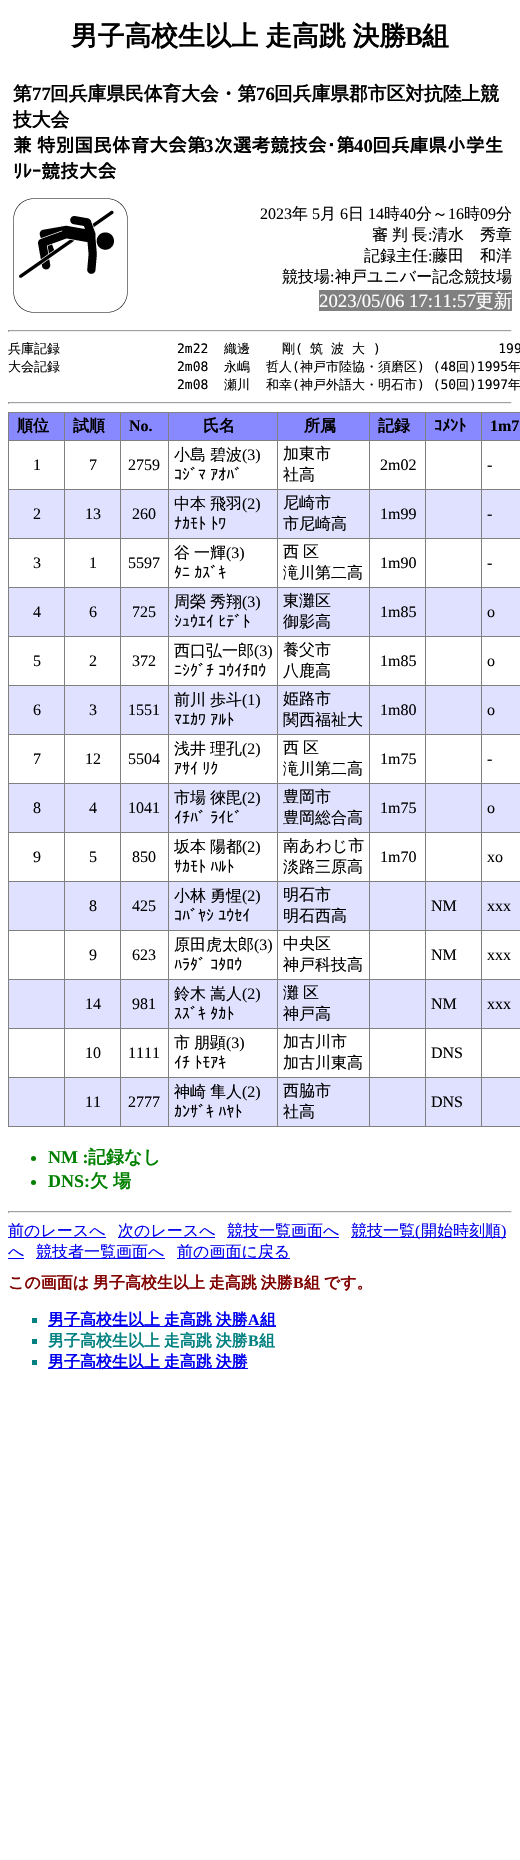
#include "include/core/SkBlurTypes.h"
#include "include/core/SkCanvas.h"
#include "include/core/SkData.h"
#include "include/core/SkFont.h"
#include "include/core/SkFontMgr.h"
#include "include/core/SkImage.h"
#include "include/core/SkMaskFilter.h"
#include "include/core/SkPaint.h"
#include "include/core/SkPathBuilder.h"
#include "include/core/SkTextBlob.h"
#include "include/effects/SkDashPathEffect.h"
#include "include/effects/SkGradientShader.h"
#include "include/utils/SkParsePath.h"

extern sk_sp<SkFontMgr> fontMgr;

void draw(SkCanvas* canvas) {
  SkPaint p;
  p.setAntiAlias(true);
  auto spacedText = [&](const char* s, float x, float y, const SkFont& font, const SkPaint& ink, float letter, float word) {
    std::vector<SkGlyphID> glyphs(font.countText(s, strlen(s), SkTextEncoding::kUTF8));
    std::vector<float> xs(glyphs.size());
    font.textToGlyphs(s, strlen(s), SkTextEncoding::kUTF8, glyphs);
    font.getXPos(glyphs, xs, x);
    float extra = 0;
    for (size_t i = 0; i < glyphs.size(); i++) {
      xs[i] += extra;
      extra += letter + word * (glyphs[i] == font.unicharToGlyph(' '));
    }
    canvas->drawTextBlob(SkTextBlob::MakeFromPosHGlyphs(glyphs, xs, y, font), 0, 0, ink);
  };
  canvas->clear(SK_ColorWHITE);
  canvas->drawImageRect(SkImages::DeferredFromEncodedData(SkData::MakeFromFileName("images/1.png")), SkRect::MakeLTRB(13, 198, 128, 313), SkSamplingOptions());
  p.setColor(SkColorSetRGB(128, 128, 128));
  canvas->drawRect(SkRect::MakeLTRB(319, 290, 512, 311), p);
  p.setColor(SkColorSetRGB(159, 159, 159));
  canvas->drawRect(SkRect::MakeLTRB(8, 330, 512, 331), p);
  p.setColor(SkColorSetRGB(238, 238, 238));
  canvas->drawRect(SkRect::MakeLTRB(511, 330, 512, 332), p);
  canvas->drawRect(SkRect::MakeLTRB(8, 331, 512, 332), p);
  p.setColor(SkColorSetRGB(159, 159, 159));
  canvas->drawRect(SkRect::MakeLTRB(8, 330, 9, 332), p);
  canvas->drawRect(SkRect::MakeLTRB(8, 402, 512, 403), p);
  p.setColor(SkColorSetRGB(238, 238, 238));
  canvas->drawRect(SkRect::MakeLTRB(511, 402, 512, 404), p);
  canvas->drawRect(SkRect::MakeLTRB(8, 403, 512, 404), p);
  p.setColor(SkColorSetRGB(159, 159, 159));
  canvas->drawRect(SkRect::MakeLTRB(8, 402, 9, 404), p);
  p.setColor(SkColorSetRGB(128, 128, 128));
  canvas->drawRect(SkRect::MakeLTRB(8, 412, 520, 413), p);
  canvas->drawRect(SkRect::MakeLTRB(8, 412, 9, 1127), p);
  p.setColor(SkColorSetRGB(136, 136, 255));
  canvas->drawRect(SkRect::MakeLTRB(9, 413, 64, 440), p);
  p.setColor(SkColorSetRGB(224, 224, 255));
  canvas->drawRect(SkRect::MakeLTRB(9, 490, 520, 538), p);
  canvas->drawRect(SkRect::MakeLTRB(9, 588, 520, 636), p);
  canvas->drawRect(SkRect::MakeLTRB(9, 686, 520, 734), p);
  canvas->drawRect(SkRect::MakeLTRB(9, 784, 520, 832), p);
  canvas->drawRect(SkRect::MakeLTRB(9, 882, 520, 930), p);
  canvas->drawRect(SkRect::MakeLTRB(9, 980, 520, 1028), p);
  canvas->drawRect(SkRect::MakeLTRB(9, 1078, 520, 1126), p);
  p.setColor(SkColorSetRGB(128, 128, 128));
  canvas->drawRect(SkRect::MakeLTRB(481, 1126, 520, 1127), p);
  canvas->drawRect(SkRect::MakeLTRB(481, 1077, 482, 1127), p);
  canvas->drawRect(SkRect::MakeLTRB(481, 1077, 520, 1078), p);
  canvas->drawRect(SkRect::MakeLTRB(481, 1028, 482, 1078), p);
  canvas->drawRect(SkRect::MakeLTRB(481, 1028, 520, 1029), p);
  canvas->drawRect(SkRect::MakeLTRB(481, 979, 482, 1029), p);
  canvas->drawRect(SkRect::MakeLTRB(481, 979, 520, 980), p);
  canvas->drawRect(SkRect::MakeLTRB(481, 930, 482, 980), p);
  canvas->drawRect(SkRect::MakeLTRB(481, 930, 520, 931), p);
  canvas->drawRect(SkRect::MakeLTRB(481, 881, 482, 931), p);
  canvas->drawRect(SkRect::MakeLTRB(481, 881, 520, 882), p);
  canvas->drawRect(SkRect::MakeLTRB(481, 832, 482, 882), p);
  canvas->drawRect(SkRect::MakeLTRB(481, 832, 520, 833), p);
  canvas->drawRect(SkRect::MakeLTRB(481, 783, 482, 833), p);
  canvas->drawRect(SkRect::MakeLTRB(481, 783, 520, 784), p);
  canvas->drawRect(SkRect::MakeLTRB(481, 734, 482, 784), p);
  canvas->drawRect(SkRect::MakeLTRB(481, 734, 520, 735), p);
  canvas->drawRect(SkRect::MakeLTRB(481, 685, 482, 735), p);
  canvas->drawRect(SkRect::MakeLTRB(481, 685, 520, 686), p);
  canvas->drawRect(SkRect::MakeLTRB(481, 636, 482, 686), p);
  canvas->drawRect(SkRect::MakeLTRB(481, 636, 520, 637), p);
  canvas->drawRect(SkRect::MakeLTRB(481, 587, 482, 637), p);
  canvas->drawRect(SkRect::MakeLTRB(481, 587, 520, 588), p);
  canvas->drawRect(SkRect::MakeLTRB(481, 538, 482, 588), p);
  canvas->drawRect(SkRect::MakeLTRB(481, 538, 520, 539), p);
  canvas->drawRect(SkRect::MakeLTRB(481, 489, 482, 539), p);
  canvas->drawRect(SkRect::MakeLTRB(481, 489, 520, 490), p);
  canvas->drawRect(SkRect::MakeLTRB(481, 440, 482, 490), p);
  canvas->drawRect(SkRect::MakeLTRB(481, 440, 520, 441), p);
  canvas->drawRect(SkRect::MakeLTRB(481, 412, 482, 441), p);
  canvas->drawRect(SkRect::MakeLTRB(425, 1126, 482, 1127), p);
  canvas->drawRect(SkRect::MakeLTRB(425, 1077, 426, 1127), p);
  canvas->drawRect(SkRect::MakeLTRB(425, 1077, 482, 1078), p);
  canvas->drawRect(SkRect::MakeLTRB(425, 1028, 426, 1078), p);
  canvas->drawRect(SkRect::MakeLTRB(425, 1028, 482, 1029), p);
  canvas->drawRect(SkRect::MakeLTRB(425, 979, 426, 1029), p);
  canvas->drawRect(SkRect::MakeLTRB(425, 979, 482, 980), p);
  canvas->drawRect(SkRect::MakeLTRB(425, 930, 426, 980), p);
  canvas->drawRect(SkRect::MakeLTRB(425, 930, 482, 931), p);
  canvas->drawRect(SkRect::MakeLTRB(425, 881, 426, 931), p);
  canvas->drawRect(SkRect::MakeLTRB(425, 881, 482, 882), p);
  canvas->drawRect(SkRect::MakeLTRB(425, 832, 426, 882), p);
  canvas->drawRect(SkRect::MakeLTRB(425, 832, 482, 833), p);
  canvas->drawRect(SkRect::MakeLTRB(425, 783, 426, 833), p);
  canvas->drawRect(SkRect::MakeLTRB(425, 783, 482, 784), p);
  canvas->drawRect(SkRect::MakeLTRB(425, 734, 426, 784), p);
  canvas->drawRect(SkRect::MakeLTRB(425, 734, 482, 735), p);
  canvas->drawRect(SkRect::MakeLTRB(425, 685, 426, 735), p);
  canvas->drawRect(SkRect::MakeLTRB(425, 685, 482, 686), p);
  canvas->drawRect(SkRect::MakeLTRB(425, 636, 426, 686), p);
  canvas->drawRect(SkRect::MakeLTRB(425, 636, 482, 637), p);
  canvas->drawRect(SkRect::MakeLTRB(425, 587, 426, 637), p);
  canvas->drawRect(SkRect::MakeLTRB(425, 587, 482, 588), p);
  canvas->drawRect(SkRect::MakeLTRB(425, 538, 426, 588), p);
  canvas->drawRect(SkRect::MakeLTRB(425, 538, 482, 539), p);
  canvas->drawRect(SkRect::MakeLTRB(425, 489, 426, 539), p);
  canvas->drawRect(SkRect::MakeLTRB(425, 489, 482, 490), p);
  canvas->drawRect(SkRect::MakeLTRB(425, 440, 426, 490), p);
  canvas->drawRect(SkRect::MakeLTRB(425, 440, 482, 441), p);
  canvas->drawRect(SkRect::MakeLTRB(425, 412, 426, 441), p);
  canvas->drawRect(SkRect::MakeLTRB(369, 1126, 426, 1127), p);
  canvas->drawRect(SkRect::MakeLTRB(369, 1077, 370, 1127), p);
  canvas->drawRect(SkRect::MakeLTRB(369, 1077, 426, 1078), p);
  canvas->drawRect(SkRect::MakeLTRB(369, 1028, 370, 1078), p);
  canvas->drawRect(SkRect::MakeLTRB(369, 1028, 426, 1029), p);
  canvas->drawRect(SkRect::MakeLTRB(369, 979, 370, 1029), p);
  canvas->drawRect(SkRect::MakeLTRB(369, 979, 426, 980), p);
  canvas->drawRect(SkRect::MakeLTRB(369, 930, 370, 980), p);
  canvas->drawRect(SkRect::MakeLTRB(369, 930, 426, 931), p);
  canvas->drawRect(SkRect::MakeLTRB(369, 881, 370, 931), p);
  canvas->drawRect(SkRect::MakeLTRB(369, 881, 426, 882), p);
  canvas->drawRect(SkRect::MakeLTRB(369, 832, 370, 882), p);
  canvas->drawRect(SkRect::MakeLTRB(369, 832, 426, 833), p);
  canvas->drawRect(SkRect::MakeLTRB(369, 783, 370, 833), p);
  canvas->drawRect(SkRect::MakeLTRB(369, 783, 426, 784), p);
  canvas->drawRect(SkRect::MakeLTRB(369, 734, 370, 784), p);
  canvas->drawRect(SkRect::MakeLTRB(369, 734, 426, 735), p);
  canvas->drawRect(SkRect::MakeLTRB(369, 685, 370, 735), p);
  canvas->drawRect(SkRect::MakeLTRB(369, 685, 426, 686), p);
  canvas->drawRect(SkRect::MakeLTRB(369, 636, 370, 686), p);
  canvas->drawRect(SkRect::MakeLTRB(369, 636, 426, 637), p);
  canvas->drawRect(SkRect::MakeLTRB(369, 587, 370, 637), p);
  canvas->drawRect(SkRect::MakeLTRB(369, 587, 426, 588), p);
  canvas->drawRect(SkRect::MakeLTRB(369, 538, 370, 588), p);
  canvas->drawRect(SkRect::MakeLTRB(369, 538, 426, 539), p);
  canvas->drawRect(SkRect::MakeLTRB(369, 489, 370, 539), p);
  canvas->drawRect(SkRect::MakeLTRB(369, 489, 426, 490), p);
  canvas->drawRect(SkRect::MakeLTRB(369, 440, 370, 490), p);
  canvas->drawRect(SkRect::MakeLTRB(369, 440, 426, 441), p);
  canvas->drawRect(SkRect::MakeLTRB(369, 412, 370, 441), p);
  canvas->drawRect(SkRect::MakeLTRB(277, 1126, 370, 1127), p);
  canvas->drawRect(SkRect::MakeLTRB(277, 1077, 278, 1127), p);
  canvas->drawRect(SkRect::MakeLTRB(277, 1077, 370, 1078), p);
  canvas->drawRect(SkRect::MakeLTRB(277, 1028, 278, 1078), p);
  canvas->drawRect(SkRect::MakeLTRB(277, 1028, 370, 1029), p);
  canvas->drawRect(SkRect::MakeLTRB(277, 979, 278, 1029), p);
  canvas->drawRect(SkRect::MakeLTRB(277, 979, 370, 980), p);
  canvas->drawRect(SkRect::MakeLTRB(277, 930, 278, 980), p);
  canvas->drawRect(SkRect::MakeLTRB(277, 930, 370, 931), p);
  canvas->drawRect(SkRect::MakeLTRB(277, 881, 278, 931), p);
  canvas->drawRect(SkRect::MakeLTRB(277, 881, 370, 882), p);
  canvas->drawRect(SkRect::MakeLTRB(277, 832, 278, 882), p);
  canvas->drawRect(SkRect::MakeLTRB(277, 832, 370, 833), p);
  canvas->drawRect(SkRect::MakeLTRB(277, 783, 278, 833), p);
  canvas->drawRect(SkRect::MakeLTRB(277, 783, 370, 784), p);
  canvas->drawRect(SkRect::MakeLTRB(277, 734, 278, 784), p);
  canvas->drawRect(SkRect::MakeLTRB(277, 734, 370, 735), p);
  canvas->drawRect(SkRect::MakeLTRB(277, 685, 278, 735), p);
  canvas->drawRect(SkRect::MakeLTRB(277, 685, 370, 686), p);
  canvas->drawRect(SkRect::MakeLTRB(277, 636, 278, 686), p);
  canvas->drawRect(SkRect::MakeLTRB(277, 636, 370, 637), p);
  canvas->drawRect(SkRect::MakeLTRB(277, 587, 278, 637), p);
  canvas->drawRect(SkRect::MakeLTRB(277, 587, 370, 588), p);
  canvas->drawRect(SkRect::MakeLTRB(277, 538, 278, 588), p);
  canvas->drawRect(SkRect::MakeLTRB(277, 538, 370, 539), p);
  canvas->drawRect(SkRect::MakeLTRB(277, 489, 278, 539), p);
  canvas->drawRect(SkRect::MakeLTRB(277, 489, 370, 490), p);
  canvas->drawRect(SkRect::MakeLTRB(277, 440, 278, 490), p);
  canvas->drawRect(SkRect::MakeLTRB(277, 440, 370, 441), p);
  canvas->drawRect(SkRect::MakeLTRB(277, 412, 278, 441), p);
  canvas->drawRect(SkRect::MakeLTRB(168, 1126, 278, 1127), p);
  canvas->drawRect(SkRect::MakeLTRB(168, 1077, 169, 1127), p);
  canvas->drawRect(SkRect::MakeLTRB(168, 1077, 278, 1078), p);
  canvas->drawRect(SkRect::MakeLTRB(168, 1028, 169, 1078), p);
  canvas->drawRect(SkRect::MakeLTRB(168, 1028, 278, 1029), p);
  canvas->drawRect(SkRect::MakeLTRB(168, 979, 169, 1029), p);
  canvas->drawRect(SkRect::MakeLTRB(168, 979, 278, 980), p);
  canvas->drawRect(SkRect::MakeLTRB(168, 930, 169, 980), p);
  canvas->drawRect(SkRect::MakeLTRB(168, 930, 278, 931), p);
  canvas->drawRect(SkRect::MakeLTRB(168, 881, 169, 931), p);
  canvas->drawRect(SkRect::MakeLTRB(168, 881, 278, 882), p);
  canvas->drawRect(SkRect::MakeLTRB(168, 832, 169, 882), p);
  canvas->drawRect(SkRect::MakeLTRB(168, 832, 278, 833), p);
  canvas->drawRect(SkRect::MakeLTRB(168, 783, 169, 833), p);
  canvas->drawRect(SkRect::MakeLTRB(168, 783, 278, 784), p);
  canvas->drawRect(SkRect::MakeLTRB(168, 734, 169, 784), p);
  canvas->drawRect(SkRect::MakeLTRB(168, 734, 278, 735), p);
  canvas->drawRect(SkRect::MakeLTRB(168, 685, 169, 735), p);
  canvas->drawRect(SkRect::MakeLTRB(168, 685, 278, 686), p);
  canvas->drawRect(SkRect::MakeLTRB(168, 636, 169, 686), p);
  canvas->drawRect(SkRect::MakeLTRB(168, 636, 278, 637), p);
  canvas->drawRect(SkRect::MakeLTRB(168, 587, 169, 637), p);
  canvas->drawRect(SkRect::MakeLTRB(168, 587, 278, 588), p);
  canvas->drawRect(SkRect::MakeLTRB(168, 538, 169, 588), p);
  canvas->drawRect(SkRect::MakeLTRB(168, 538, 278, 539), p);
  canvas->drawRect(SkRect::MakeLTRB(168, 489, 169, 539), p);
  canvas->drawRect(SkRect::MakeLTRB(168, 489, 278, 490), p);
  canvas->drawRect(SkRect::MakeLTRB(168, 440, 169, 490), p);
  canvas->drawRect(SkRect::MakeLTRB(168, 440, 278, 441), p);
  canvas->drawRect(SkRect::MakeLTRB(168, 412, 169, 441), p);
  canvas->drawRect(SkRect::MakeLTRB(120, 1126, 169, 1127), p);
  canvas->drawRect(SkRect::MakeLTRB(120, 1077, 121, 1127), p);
  canvas->drawRect(SkRect::MakeLTRB(120, 1077, 169, 1078), p);
  canvas->drawRect(SkRect::MakeLTRB(120, 1028, 121, 1078), p);
  canvas->drawRect(SkRect::MakeLTRB(120, 1028, 169, 1029), p);
  canvas->drawRect(SkRect::MakeLTRB(120, 979, 121, 1029), p);
  canvas->drawRect(SkRect::MakeLTRB(120, 979, 169, 980), p);
  canvas->drawRect(SkRect::MakeLTRB(120, 930, 121, 980), p);
  canvas->drawRect(SkRect::MakeLTRB(120, 930, 169, 931), p);
  canvas->drawRect(SkRect::MakeLTRB(120, 881, 121, 931), p);
  canvas->drawRect(SkRect::MakeLTRB(120, 881, 169, 882), p);
  canvas->drawRect(SkRect::MakeLTRB(120, 832, 121, 882), p);
  canvas->drawRect(SkRect::MakeLTRB(120, 832, 169, 833), p);
  canvas->drawRect(SkRect::MakeLTRB(120, 783, 121, 833), p);
  canvas->drawRect(SkRect::MakeLTRB(120, 783, 169, 784), p);
  canvas->drawRect(SkRect::MakeLTRB(120, 734, 121, 784), p);
  canvas->drawRect(SkRect::MakeLTRB(120, 734, 169, 735), p);
  canvas->drawRect(SkRect::MakeLTRB(120, 685, 121, 735), p);
  canvas->drawRect(SkRect::MakeLTRB(120, 685, 169, 686), p);
  canvas->drawRect(SkRect::MakeLTRB(120, 636, 121, 686), p);
  canvas->drawRect(SkRect::MakeLTRB(120, 636, 169, 637), p);
  canvas->drawRect(SkRect::MakeLTRB(120, 587, 121, 637), p);
  canvas->drawRect(SkRect::MakeLTRB(120, 587, 169, 588), p);
  canvas->drawRect(SkRect::MakeLTRB(120, 538, 121, 588), p);
  canvas->drawRect(SkRect::MakeLTRB(120, 538, 169, 539), p);
  canvas->drawRect(SkRect::MakeLTRB(120, 489, 121, 539), p);
  canvas->drawRect(SkRect::MakeLTRB(120, 489, 169, 490), p);
  canvas->drawRect(SkRect::MakeLTRB(120, 440, 121, 490), p);
  canvas->drawRect(SkRect::MakeLTRB(120, 440, 169, 441), p);
  canvas->drawRect(SkRect::MakeLTRB(120, 412, 121, 441), p);
  canvas->drawRect(SkRect::MakeLTRB(64, 1126, 121, 1127), p);
  canvas->drawRect(SkRect::MakeLTRB(64, 1077, 65, 1127), p);
  canvas->drawRect(SkRect::MakeLTRB(64, 1077, 121, 1078), p);
  canvas->drawRect(SkRect::MakeLTRB(64, 1028, 65, 1078), p);
  canvas->drawRect(SkRect::MakeLTRB(64, 1028, 121, 1029), p);
  canvas->drawRect(SkRect::MakeLTRB(64, 979, 65, 1029), p);
  canvas->drawRect(SkRect::MakeLTRB(64, 979, 121, 980), p);
  canvas->drawRect(SkRect::MakeLTRB(64, 930, 65, 980), p);
  canvas->drawRect(SkRect::MakeLTRB(64, 930, 121, 931), p);
  canvas->drawRect(SkRect::MakeLTRB(64, 881, 65, 931), p);
  canvas->drawRect(SkRect::MakeLTRB(64, 881, 121, 882), p);
  canvas->drawRect(SkRect::MakeLTRB(64, 832, 65, 882), p);
  canvas->drawRect(SkRect::MakeLTRB(64, 832, 121, 833), p);
  canvas->drawRect(SkRect::MakeLTRB(64, 783, 65, 833), p);
  canvas->drawRect(SkRect::MakeLTRB(64, 783, 121, 784), p);
  canvas->drawRect(SkRect::MakeLTRB(64, 734, 65, 784), p);
  canvas->drawRect(SkRect::MakeLTRB(64, 734, 121, 735), p);
  canvas->drawRect(SkRect::MakeLTRB(64, 685, 65, 735), p);
  canvas->drawRect(SkRect::MakeLTRB(64, 685, 121, 686), p);
  canvas->drawRect(SkRect::MakeLTRB(64, 636, 65, 686), p);
  canvas->drawRect(SkRect::MakeLTRB(64, 636, 121, 637), p);
  canvas->drawRect(SkRect::MakeLTRB(64, 587, 65, 637), p);
  canvas->drawRect(SkRect::MakeLTRB(64, 587, 121, 588), p);
  canvas->drawRect(SkRect::MakeLTRB(64, 538, 65, 588), p);
  canvas->drawRect(SkRect::MakeLTRB(64, 538, 121, 539), p);
  canvas->drawRect(SkRect::MakeLTRB(64, 489, 65, 539), p);
  canvas->drawRect(SkRect::MakeLTRB(64, 489, 121, 490), p);
  canvas->drawRect(SkRect::MakeLTRB(64, 440, 65, 490), p);
  canvas->drawRect(SkRect::MakeLTRB(64, 440, 121, 441), p);
  canvas->drawRect(SkRect::MakeLTRB(64, 412, 65, 441), p);
  canvas->drawRect(SkRect::MakeLTRB(8, 440, 65, 441), p);
  p.setColor(SkColorSetRGB(136, 136, 255));
  canvas->drawRect(SkRect::MakeLTRB(65, 413, 120, 440), p);
  canvas->drawRect(SkRect::MakeLTRB(121, 413, 168, 440), p);
  canvas->drawRect(SkRect::MakeLTRB(169, 413, 277, 440), p);
  canvas->drawRect(SkRect::MakeLTRB(278, 413, 369, 440), p);
  canvas->drawRect(SkRect::MakeLTRB(370, 413, 425, 440), p);
  canvas->drawRect(SkRect::MakeLTRB(426, 413, 481, 440), p);
  canvas->drawRect(SkRect::MakeLTRB(482, 413, 520, 440), p);
  p.setColor(SkColorSetRGB(128, 128, 128));
  canvas->drawRect(SkRect::MakeLTRB(8, 489, 65, 490), p);
  canvas->drawRect(SkRect::MakeLTRB(8, 538, 65, 539), p);
  canvas->drawRect(SkRect::MakeLTRB(8, 587, 65, 588), p);
  canvas->drawRect(SkRect::MakeLTRB(8, 636, 65, 637), p);
  canvas->drawRect(SkRect::MakeLTRB(8, 685, 65, 686), p);
  canvas->drawRect(SkRect::MakeLTRB(8, 734, 65, 735), p);
  canvas->drawRect(SkRect::MakeLTRB(8, 783, 65, 784), p);
  canvas->drawRect(SkRect::MakeLTRB(8, 832, 65, 833), p);
  canvas->drawRect(SkRect::MakeLTRB(8, 881, 65, 882), p);
  canvas->drawRect(SkRect::MakeLTRB(8, 930, 65, 931), p);
  canvas->drawRect(SkRect::MakeLTRB(8, 979, 65, 980), p);
  canvas->drawRect(SkRect::MakeLTRB(8, 1028, 65, 1029), p);
  canvas->drawRect(SkRect::MakeLTRB(8, 1077, 65, 1078), p);
  canvas->drawRect(SkRect::MakeLTRB(8, 1126, 65, 1127), p);
  p.setColor(SkColorSetRGB(0, 128, 0));
  canvas->drawCircle(33.5f, 1158.5f, 2.5f, p);
  canvas->drawCircle(33.5f, 1182.5f, 2.5f, p);
  p.setColor(SkColorSetRGB(159, 159, 159));
  canvas->drawRect(SkRect::MakeLTRB(8, 1211, 512, 1212), p);
  p.setColor(SkColorSetRGB(238, 238, 238));
  canvas->drawRect(SkRect::MakeLTRB(511, 1211, 512, 1213), p);
  canvas->drawRect(SkRect::MakeLTRB(8, 1212, 512, 1213), p);
  p.setColor(SkColorSetRGB(159, 159, 159));
  canvas->drawRect(SkRect::MakeLTRB(8, 1211, 9, 1213), p);
  p.setColor(SkColorSetRGB(0, 0, 238));
  canvas->drawRect(SkRect::MakeLTRB(8, 1237, 106, 1238), p);
  canvas->drawRect(SkRect::MakeLTRB(118, 1237, 215, 1238), p);
  canvas->drawRect(SkRect::MakeLTRB(227, 1237, 339, 1238), p);
  canvas->drawRect(SkRect::MakeLTRB(351, 1237, 506, 1238), p);
  canvas->drawRect(SkRect::MakeLTRB(8, 1258, 24, 1259), p);
  canvas->drawRect(SkRect::MakeLTRB(36, 1258, 165, 1259), p);
  canvas->drawRect(SkRect::MakeLTRB(177, 1258, 290, 1259), p);
  p.setColor(SkColorSetRGB(0, 128, 128));
  canvas->drawRect(SkRect::MakeLTRB(32, 1318, 37, 1323), p);
  p.setColor(SkColorSetRGB(0, 0, 238));
  canvas->drawRect(SkRect::MakeLTRB(48, 1326, 276, 1327), p);
  p.setColor(SkColorSetRGB(0, 128, 128));
  canvas->drawRect(SkRect::MakeLTRB(32, 1339, 37, 1344), p);
  canvas->drawRect(SkRect::MakeLTRB(32, 1360, 37, 1365), p);
  p.setColor(SkColorSetRGB(0, 0, 238));
  canvas->drawRect(SkRect::MakeLTRB(48, 1368, 248, 1369), p);
  SkFont font1(fontMgr->matchFamilyStyle("WenQuanYi Zen Hei", SkFontStyle::Bold()), 26.75f);
  font1.setSubpixel(true);
  p.setColor(SK_ColorBLACK);
  spacedText("男子高校生以上 走高跳 決勝", 71, 45, font1, p, 0, -1);
  SkFont font2(fontMgr->matchFamilyStyle("Liberation Serif", SkFontStyle::Bold()), 26.75f);
  font2.setSubpixel(true);
  canvas->drawString("B", 405, 45, font2, p);
  canvas->drawString("組", 422, 45, font1, p);
  SkFont font3(fontMgr->matchFamilyStyle("WenQuanYi Zen Hei", SkFontStyle::Bold()), 18.75f);
  font3.setSubpixel(true);
  canvas->drawString("第", 13, 100, font3, p);
  SkFont font4(fontMgr->matchFamilyStyle("Liberation Serif", SkFontStyle::Bold()), 18.75f);
  font4.setSubpixel(true);
  canvas->drawString("77", 32, 100, font4, p);
  canvas->drawString("回兵庫県民体育大会・第", 50, 100, font3, p);
  canvas->drawString("76", 256, 100, font4, p);
  canvas->drawString("回兵庫県郡市区対抗陸上競", 274, 100, font3, p);
  canvas->drawString("技大会", 13, 126, font3, p);
  SkFont font5(fontMgr->matchFamilyStyle("IPAPGothic", SkFontStyle::Bold()), 18.75f);
  font5.setSubpixel(true);
  canvas->drawString("兼 特別国民体育大会第", 13, 152, font5, p);
  canvas->drawString("3", 204, 152, font4, p);
  canvas->drawString("次選考競技会･第", 214, 152, font5, p);
  canvas->drawString("40", 354, 152, font4, p);
  canvas->drawString("回兵庫県小学生", 372, 152, font5, p);
  canvas->drawString("ﾘﾚｰ競技大会", 13, 178, font5, p);
  SkFont font6(fontMgr->matchFamilyStyle("Liberation Serif", SkFontStyle::Normal()), 16);
  font6.setSubpixel(true);
  canvas->drawString("2023", 260, 219, font6, p);
  SkFont font7(fontMgr->matchFamilyStyle("WenQuanYi Zen Hei", SkFontStyle(500, SkFontStyle::kNormal_Width, SkFontStyle::kUpright_Slant)), 16);
  font7.setSubpixel(true);
  canvas->drawString("年", 292, 219, font7, p);
  canvas->drawString("5", 312, 219, font6, p);
  canvas->drawString("月", 320, 219, font7, p);
  canvas->drawString("6", 340, 219, font6, p);
  canvas->drawString("日", 348, 219, font7, p);
  canvas->drawString("14", 368, 219, font6, p);
  canvas->drawString("時", 384, 219, font7, p);
  canvas->drawString("40", 400, 219, font6, p);
  canvas->drawString("分～", 416, 219, font7, p);
  canvas->drawString("16", 448, 219, font6, p);
  canvas->drawString("時", 464, 219, font7, p);
  canvas->drawString("09", 480, 219, font6, p);
  canvas->drawString("分", 496, 219, font7, p);
  spacedText("審 判 長", 372, 240, font7, p, 0, -1);
  canvas->drawString(":", 428, 240, font6, p);
  canvas->drawString("清水　秀章", 432, 240, font7, p);
  canvas->drawString("記録主任", 364, 261, font7, p);
  canvas->drawString(":", 428, 261, font6, p);
  canvas->drawString("藤田　和洋", 432, 261, font7, p);
  canvas->drawString("競技場", 282, 282, font7, p);
  canvas->drawString(":", 330, 282, font6, p);
  canvas->drawString("神戸ユニバー記念競技場", 335, 282, font7, p);
  SkFont font8(fontMgr->matchFamilyStyle("Liberation Serif", SkFontStyle::Normal()), 18.75f);
  font8.setSubpixel(true);
  p.setColor(SK_ColorWHITE);
  canvas->drawString("2023/05/06 17:11:57", 319, 307, font8, p);
  SkFont font9(fontMgr->matchFamilyStyle("WenQuanYi Zen Hei", SkFontStyle(500, SkFontStyle::kNormal_Width, SkFontStyle::kUpright_Slant)), 18.75f);
  font9.setSubpixel(true);
  canvas->drawString("更新", 475, 307, font9, p);
  SkFont font10(fontMgr->matchFamilyStyle("WenQuanYi Zen Hei", SkFontStyle(500, SkFontStyle::kNormal_Width, SkFontStyle::kUpright_Slant)), 13);
  font10.setSubpixel(true);
  p.setColor(SK_ColorBLACK);
  canvas->drawString("兵庫記録", 8, 353, font10, p);
  SkFont font11(fontMgr->matchFamilyStyle("DejaVu Sans Mono", SkFontStyle::Normal()), 13);
  font11.setSubpixel(true);
  canvas->drawString("2m22", 177, 353, font11, p);
  canvas->drawString("織邊", 224, 353, font10, p);
  canvas->drawString("剛", 282, 353, font10, p);
  canvas->drawString("(", 295, 353, font11, p);
  canvas->drawString("筑", 310, 353, font10, p);
  canvas->drawString("波", 331, 353, font10, p);
  canvas->drawString("大", 352, 353, font10, p);
  canvas->drawString(")               199", 373, 353, font11, p);
  canvas->drawString("大会記録", 8, 371, font10, p);
  canvas->drawString("2m08", 177, 371, font11, p);
  canvas->drawString("永嶋", 224, 371, font10, p);
  canvas->drawString("哲人", 266, 371, font10, p);
  canvas->drawString("(", 292, 371, font11, p);
  canvas->drawString("神戸市陸協・須磨区", 300, 371, font10, p);
  canvas->drawString(") (48", 417, 371, font11, p);
  canvas->drawString("回", 456, 371, font10, p);
  canvas->drawString(")1995", 469, 371, font11, p);
  canvas->drawString("年", 508, 371, font10, p);
  canvas->drawString("2m08", 177, 389, font11, p);
  canvas->drawString("瀬川", 224, 389, font10, p);
  canvas->drawString("和幸", 266, 389, font10, p);
  canvas->drawString("(", 292, 389, font11, p);
  canvas->drawString("神戸外語大・明石市", 300, 389, font10, p);
  canvas->drawString(") (50", 417, 389, font11, p);
  canvas->drawString("回", 456, 389, font10, p);
  canvas->drawString(")1997", 469, 389, font11, p);
  canvas->drawString("年", 508, 389, font10, p);
  SkFont font12(fontMgr->matchFamilyStyle("WenQuanYi Zen Hei", SkFontStyle::Bold()), 16);
  font12.setSubpixel(true);
  canvas->drawString("順位", 17, 431, font12, p);
  canvas->drawString("試順", 73, 431, font12, p);
  SkFont font13(fontMgr->matchFamilyStyle("Liberation Serif", SkFontStyle::Bold()), 16);
  font13.setSubpixel(true);
  canvas->drawString("No.", 129, 431, font13, p);
  canvas->drawString("氏名", 203, 431, font12, p);
  canvas->drawString("所属", 304, 431, font12, p);
  canvas->drawString("記録", 378, 431, font12, p);
  SkFont font14(fontMgr->matchFamilyStyle("IPAPGothic", SkFontStyle::Bold()), 16);
  font14.setSubpixel(true);
  canvas->drawString("ｺﾒﾝﾄ", 434, 431, font14, p);
  canvas->drawString("1m7", 490, 431, font13, p);
  canvas->drawString("1", 33, 470, font6, p);
  canvas->drawString("7", 89, 470, font6, p);
  canvas->drawString("2759", 128, 470, font6, p);
  canvas->drawString("小島", 174, 460, font7, p);
  canvas->drawString("碧波", 210, 460, font7, p);
  canvas->drawString("(3)", 242, 460, font6, p);
  SkFont font15(fontMgr->matchFamilyStyle("IPAPGothic", SkFontStyle::Normal()), 16);
  font15.setSubpixel(true);
  canvas->drawString("ｺｼﾞﾏ ｱｵﾊﾞ", 174, 480, font15, p);
  canvas->drawString("加東市", 283, 459, font7, p);
  canvas->drawString("社高", 283, 480, font7, p);
  canvas->drawString("2m02", 380, 470, font6, p);
  canvas->drawString("-", 487, 470, font6, p);
  canvas->drawString("2", 33, 519, font6, p);
  canvas->drawString("13", 85, 519, font6, p);
  canvas->drawString("260", 132, 519, font6, p);
  canvas->drawString("中本", 174, 509, font7, p);
  canvas->drawString("飛羽", 210, 509, font7, p);
  canvas->drawString("(2)", 242, 509, font6, p);
  canvas->drawString("ﾅｶﾓﾄ ﾄﾜ", 174, 529, font15, p);
  canvas->drawString("尼崎市", 283, 508, font7, p);
  canvas->drawString("市尼崎高", 283, 529, font7, p);
  canvas->drawString("1m99", 380, 519, font6, p);
  canvas->drawString("-", 487, 519, font6, p);
  canvas->drawString("3", 33, 568, font6, p);
  canvas->drawString("1", 89, 568, font6, p);
  canvas->drawString("5597", 128, 568, font6, p);
  canvas->drawString("谷", 174, 558, font7, p);
  canvas->drawString("一輝", 194, 558, font7, p);
  canvas->drawString("(3)", 226, 558, font6, p);
  canvas->drawString("ﾀﾆ ｶｽﾞｷ", 174, 578, font15, p);
  canvas->drawString("西", 283, 557, font7, p);
  canvas->drawString("区", 303, 557, font7, p);
  canvas->drawString("滝川第二高", 283, 578, font7, p);
  canvas->drawString("1m90", 380, 568, font6, p);
  canvas->drawString("-", 487, 568, font6, p);
  canvas->drawString("4", 33, 617, font6, p);
  canvas->drawString("6", 89, 617, font6, p);
  canvas->drawString("725", 132, 617, font6, p);
  canvas->drawString("周榮", 174, 607, font7, p);
  canvas->drawString("秀翔", 210, 607, font7, p);
  canvas->drawString("(3)", 242, 607, font6, p);
  canvas->drawString("ｼｭｳｴｲ ﾋﾃﾞﾄ", 174, 627, font15, p);
  canvas->drawString("東灘区", 283, 606, font7, p);
  canvas->drawString("御影高", 283, 627, font7, p);
  canvas->drawString("1m85", 380, 617, font6, p);
  canvas->drawString("o", 487, 617, font6, p);
  canvas->drawString("5", 33, 666, font6, p);
  canvas->drawString("2", 89, 666, font6, p);
  canvas->drawString("372", 132, 666, font6, p);
  canvas->drawString("西口弘一郎", 174, 656, font7, p);
  canvas->drawString("(3)", 254, 656, font6, p);
  canvas->drawString("ﾆｼｸﾞﾁ ｺｳｲﾁﾛｳ", 174, 676, font15, p);
  canvas->drawString("養父市", 283, 655, font7, p);
  canvas->drawString("八鹿高", 283, 676, font7, p);
  canvas->drawString("1m85", 380, 666, font6, p);
  canvas->drawString("o", 487, 666, font6, p);
  canvas->drawString("6", 33, 715, font6, p);
  canvas->drawString("3", 89, 715, font6, p);
  canvas->drawString("1551", 128, 715, font6, p);
  canvas->drawString("前川", 174, 705, font7, p);
  canvas->drawString("歩斗", 210, 705, font7, p);
  canvas->drawString("(1)", 242, 705, font6, p);
  canvas->drawString("ﾏｴｶﾜ ｱﾙﾄ", 174, 725, font15, p);
  canvas->drawString("姫路市", 283, 704, font7, p);
  canvas->drawString("関西福祉大", 283, 725, font7, p);
  canvas->drawString("1m80", 380, 715, font6, p);
  canvas->drawString("o", 487, 715, font6, p);
  canvas->drawString("7", 33, 764, font6, p);
  canvas->drawString("12", 85, 764, font6, p);
  canvas->drawString("5504", 128, 764, font6, p);
  canvas->drawString("浅井", 174, 754, font7, p);
  canvas->drawString("理孔", 210, 754, font7, p);
  canvas->drawString("(2)", 242, 754, font6, p);
  canvas->drawString("ｱｻｲ ﾘｸ", 174, 774, font15, p);
  canvas->drawString("西", 283, 753, font7, p);
  canvas->drawString("区", 303, 753, font7, p);
  canvas->drawString("滝川第二高", 283, 774, font7, p);
  canvas->drawString("1m75", 380, 764, font6, p);
  canvas->drawString("-", 487, 764, font6, p);
  canvas->drawString("8", 33, 813, font6, p);
  canvas->drawString("4", 89, 813, font6, p);
  canvas->drawString("1041", 128, 813, font6, p);
  canvas->drawString("市場", 174, 803, font7, p);
  canvas->drawString("徠毘", 210, 803, font7, p);
  canvas->drawString("(2)", 242, 803, font6, p);
  canvas->drawString("ｲﾁﾊﾞ ﾗｲﾋﾞ", 174, 823, font15, p);
  canvas->drawString("豊岡市", 283, 802, font7, p);
  canvas->drawString("豊岡総合高", 283, 823, font7, p);
  canvas->drawString("1m75", 380, 813, font6, p);
  canvas->drawString("o", 487, 813, font6, p);
  canvas->drawString("9", 33, 862, font6, p);
  canvas->drawString("5", 89, 862, font6, p);
  canvas->drawString("850", 132, 862, font6, p);
  canvas->drawString("坂本", 174, 852, font7, p);
  canvas->drawString("陽都", 210, 852, font7, p);
  canvas->drawString("(2)", 242, 852, font6, p);
  canvas->drawString("ｻｶﾓﾄ ﾊﾙﾄ", 174, 872, font15, p);
  canvas->drawString("南あわじ市", 283, 851, font7, p);
  canvas->drawString("淡路三原高", 283, 872, font7, p);
  canvas->drawString("1m70", 380, 862, font6, p);
  canvas->drawString("xo", 487, 862, font6, p);
  canvas->drawString("8", 89, 911, font6, p);
  canvas->drawString("425", 132, 911, font6, p);
  canvas->drawString("小林", 174, 901, font7, p);
  canvas->drawString("勇惺", 210, 901, font7, p);
  canvas->drawString("(2)", 242, 901, font6, p);
  canvas->drawString("ｺﾊﾞﾔｼ ﾕｳｾｲ", 174, 921, font15, p);
  canvas->drawString("明石市", 283, 900, font7, p);
  canvas->drawString("明石西高", 283, 921, font7, p);
  canvas->drawString("NM", 431, 911, font6, p);
  canvas->drawString("xxx", 487, 911, font6, p);
  canvas->drawString("9", 89, 960, font6, p);
  canvas->drawString("623", 132, 960, font6, p);
  canvas->drawString("原田虎太郎", 174, 950, font7, p);
  canvas->drawString("(3)", 254, 950, font6, p);
  canvas->drawString("ﾊﾗﾀﾞ ｺﾀﾛｳ", 174, 970, font15, p);
  canvas->drawString("中央区", 283, 949, font7, p);
  canvas->drawString("神戸科技高", 283, 970, font7, p);
  canvas->drawString("NM", 431, 960, font6, p);
  canvas->drawString("xxx", 487, 960, font6, p);
  canvas->drawString("14", 85, 1009, font6, p);
  canvas->drawString("981", 132, 1009, font6, p);
  canvas->drawString("鈴木", 174, 999, font7, p);
  canvas->drawString("嵩人", 210, 999, font7, p);
  canvas->drawString("(2)", 242, 999, font6, p);
  canvas->drawString("ｽｽﾞｷ ﾀｶﾄ", 174, 1019, font15, p);
  canvas->drawString("灘", 283, 998, font7, p);
  canvas->drawString("区", 303, 998, font7, p);
  canvas->drawString("神戸高", 283, 1019, font7, p);
  canvas->drawString("NM", 431, 1009, font6, p);
  canvas->drawString("xxx", 487, 1009, font6, p);
  canvas->drawString("10", 85, 1058, font6, p);
  canvas->drawString("1111", 128, 1058, font6, p);
  canvas->drawString("市", 174, 1048, font7, p);
  canvas->drawString("朋顕", 194, 1048, font7, p);
  canvas->drawString("(3)", 226, 1048, font6, p);
  canvas->drawString("ｲﾁ ﾄﾓｱｷ", 174, 1068, font15, p);
  canvas->drawString("加古川市", 283, 1047, font7, p);
  canvas->drawString("加古川東高", 283, 1068, font7, p);
  canvas->drawString("DNS", 431, 1058, font6, p);
  canvas->drawString("11", 85, 1107, font6, p);
  canvas->drawString("2777", 128, 1107, font6, p);
  canvas->drawString("神崎", 174, 1097, font7, p);
  canvas->drawString("隼人", 210, 1097, font7, p);
  canvas->drawString("(2)", 242, 1097, font6, p);
  canvas->drawString("ｶﾝｻﾞｷ ﾊﾔﾄ", 174, 1117, font15, p);
  canvas->drawString("西脇市", 283, 1096, font7, p);
  canvas->drawString("社高", 283, 1117, font7, p);
  canvas->drawString("DNS", 431, 1107, font6, p);
  SkFont font16(fontMgr->matchFamilyStyle("Liberation Serif", SkFontStyle::Bold()), 18);
  font16.setSubpixel(true);
  p.setColor(SkColorSetRGB(0, 128, 0));
  canvas->drawString("NM :", 48, 1163, font16, p);
  SkFont font17(fontMgr->matchFamilyStyle("WenQuanYi Zen Hei", SkFontStyle::Bold()), 18);
  font17.setSubpixel(true);
  canvas->drawString("記録なし", 88, 1163, font17, p);
  canvas->drawString("DNS:", 48, 1187, font16, p);
  canvas->drawString("欠", 90, 1187, font17, p);
  canvas->drawString("場", 113, 1187, font17, p);
  p.setColor(SkColorSetRGB(0, 0, 238));
  canvas->drawString("前のレースへ", 8, 1236, font7, p);
  canvas->drawString("次のレースへ", 118, 1236, font7, p);
  canvas->drawString("競技一覧画面へ", 227, 1236, font7, p);
  canvas->drawString("競技一覧", 351, 1236, font7, p);
  canvas->drawString("(", 415, 1236, font6, p);
  canvas->drawString("開始時刻順", 421, 1236, font7, p);
  canvas->drawString(")", 501, 1236, font6, p);
  canvas->drawString("へ", 8, 1257, font7, p);
  canvas->drawString("競技者一覧画面へ", 36, 1257, font7, p);
  canvas->drawString("前の画面に戻る", 177, 1257, font7, p);
  p.setColor(SkColorSetRGB(128, 0, 0));
  spacedText("この画面は 男子高校生以上 走高跳 決勝", 8, 1288, font12, p, 0, -1);
  canvas->drawString("B", 293, 1288, font13, p);
  spacedText("組 です。", 304, 1288, font12, p, 0, -1);
  p.setColor(SkColorSetRGB(0, 0, 238));
  spacedText("男子高校生以上 走高跳 決勝", 48, 1325, font12, p, 0, -1);
  canvas->drawString("A", 248, 1325, font13, p);
  canvas->drawString("組", 260, 1325, font12, p);
  p.setColor(SkColorSetRGB(0, 128, 128));
  spacedText("男子高校生以上 走高跳 決勝", 48, 1346, font12, p, 0, -1);
  canvas->drawString("B", 248, 1346, font13, p);
  canvas->drawString("組", 259, 1346, font12, p);
  p.setColor(SkColorSetRGB(0, 0, 238));
  spacedText("男子高校生以上 走高跳 決勝", 48, 1367, font12, p, 0, -1);
}
